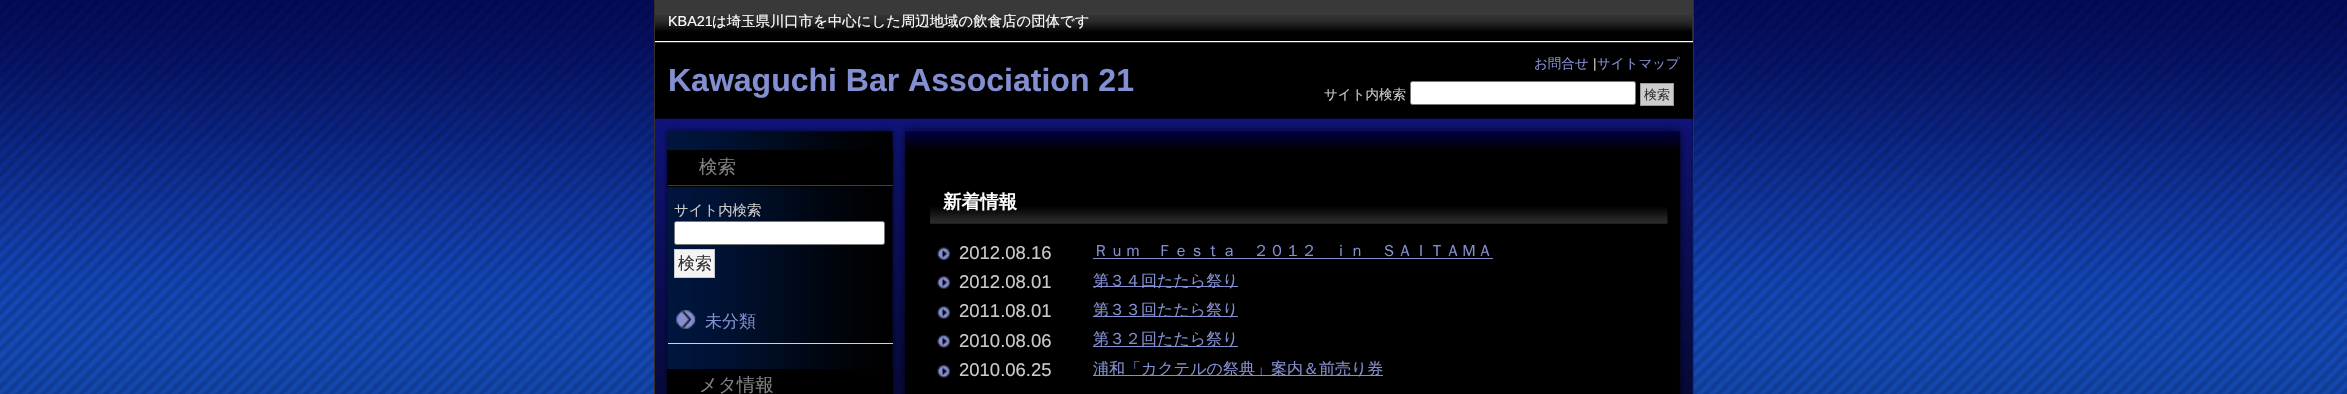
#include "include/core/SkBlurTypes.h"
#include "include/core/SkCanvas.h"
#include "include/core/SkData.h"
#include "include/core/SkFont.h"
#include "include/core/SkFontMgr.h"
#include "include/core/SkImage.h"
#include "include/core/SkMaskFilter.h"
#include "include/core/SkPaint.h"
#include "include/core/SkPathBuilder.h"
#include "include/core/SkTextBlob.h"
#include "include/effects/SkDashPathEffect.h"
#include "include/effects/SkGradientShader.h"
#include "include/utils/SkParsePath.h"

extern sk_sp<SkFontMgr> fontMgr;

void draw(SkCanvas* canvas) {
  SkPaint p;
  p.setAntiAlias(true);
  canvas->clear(SK_ColorWHITE);
  canvas->drawImageRect(SkImages::DeferredFromEncodedData(SkData::MakeFromFileName("images/1.png")), SkRect::MakeLTRB(0, 0, 2347, 394), SkSamplingOptions());
  canvas->drawImageRect(SkImages::DeferredFromEncodedData(SkData::MakeFromFileName("images/2.png")), SkRect::MakeLTRB(1692, 119, 1693, 394), SkSamplingOptions());
  p.setColor(SkColorSetRGB(54, 46, 43));
  canvas->drawRect(SkRect::MakeLTRB(1693, 0, 1694, 394), p);
  canvas->drawRect(SkRect::MakeLTRB(654, 0, 655, 394), p);
  p.setColor(SK_ColorBLACK);
  canvas->drawRect(SkRect::MakeLTRB(655, 43, 1693, 119), p);
  p.setColor(SkColorSetRGB(57, 57, 57));
  canvas->drawRect(SkRect::MakeLTRB(655, 0, 1693, 43), p);
  canvas->drawImageRect(SkImages::DeferredFromEncodedData(SkData::MakeFromFileName("images/3.png")), SkRect::MakeLTRB(655, 15, 1693, 41), SkSamplingOptions());
  p.setColor(SK_ColorWHITE);
  canvas->drawRect(SkRect::MakeLTRB(655, 41, 1693, 42), p);
  canvas->drawRoundRect(SkRect::MakeLTRB(1410.5f, 81.5f, 1635.5f, 104.5f), 2, 2, p);
  p.setStyle(SkPaint::kStroke_Style);
  p.setStrokeWidth(1);
  p.setColor(SkColorSetRGB(118, 118, 118));
  canvas->drawRoundRect(SkRect::MakeLTRB(1410.5f, 81.5f, 1635.5f, 104.5f), 2, 2, p);
  p.setStyle(SkPaint::kFill_Style);
  p.setColor(SkColorSetRGB(204, 204, 204));
  canvas->drawRect(SkRect::MakeLTRB(1640.5f, 83.5f, 1673.5f, 105.5f), p);
  p.setStyle(SkPaint::kStroke_Style);
  p.setColor(SkColorSetRGB(153, 153, 153));
  canvas->drawRect(SkRect::MakeLTRB(1640.5f, 83.5f, 1673.5f, 105.5f), p);
  canvas->drawImageRect(SkImages::DeferredFromEncodedData(SkData::MakeFromFileName("images/4.png")), SkRect::MakeLTRB(655, 118, 1693, 394), SkSamplingOptions());
  p.setStyle(SkPaint::kFill_Style);
  p.setColor(SK_ColorBLACK);
  canvas->drawRect(SkRect::MakeLTRB(667, 150, 893, 187), p);
  p.setColor(SkColorSetRGB(51, 62, 81));
  canvas->drawRect(SkRect::MakeLTRB(668, 185, 893, 186), p);
  p.setColor(SK_ColorWHITE);
  canvas->drawRoundRect(SkRect::MakeLTRB(674.5f, 221.5f, 884.5f, 244.5f), 2, 2, p);
  p.setStyle(SkPaint::kStroke_Style);
  p.setColor(SkColorSetRGB(118, 118, 118));
  canvas->drawRoundRect(SkRect::MakeLTRB(674.5f, 221.5f, 884.5f, 244.5f), 2, 2, p);
  p.setStyle(SkPaint::kFill_Style);
  p.setColor(SkColorSetRGB(244, 244, 244));
  canvas->drawRect(SkRect::MakeLTRB(674.5f, 249.5f, 714.5f, 277.5f), p);
  p.setStyle(SkPaint::kStroke_Style);
  p.setColor(SkColorSetRGB(201, 201, 201));
  canvas->drawRect(SkRect::MakeLTRB(674.5f, 249.5f, 714.5f, 277.5f), p);
  canvas->drawImageRect(SkImages::DeferredFromEncodedData(SkData::MakeFromFileName("images/5.png")), SkRect::MakeLTRB(676, 310, 696, 329), SkSamplingOptions());
  p.setStyle(SkPaint::kFill_Style);
  p.setColor(SkColorSetRGB(211, 211, 211));
  canvas->drawRect(SkRect::MakeLTRB(668, 343, 893, 344), p);
  p.setColor(SK_ColorBLACK);
  canvas->drawRect(SkRect::MakeLTRB(667, 369, 893, 394), p);
  canvas->drawImageRect(SkImages::DeferredFromEncodedData(SkData::MakeFromFileName("images/6.png")), SkRect::MakeLTRB(930, 207, 1668, 224), SkSamplingOptions());
  canvas->drawImageRect(SkImages::DeferredFromEncodedData(SkData::MakeFromFileName("images/7.png")), SkRect::MakeLTRB(937, 247, 951, 261), SkSamplingOptions());
  p.setColor(SkColorSetRGB(132, 143, 209));
  canvas->drawRect(SkRect::MakeLTRB(1093, 258, 1493, 259), p);
  canvas->drawImageRect(SkImages::DeferredFromEncodedData(SkData::MakeFromFileName("images/8.png")), SkRect::MakeLTRB(937, 276, 951, 289), SkSamplingOptions());
  canvas->drawRect(SkRect::MakeLTRB(1093, 286, 1238, 287), p);
  canvas->drawImageRect(SkImages::DeferredFromEncodedData(SkData::MakeFromFileName("images/8.png")), SkRect::MakeLTRB(937, 306, 951, 319), SkSamplingOptions());
  canvas->drawRect(SkRect::MakeLTRB(1093, 316, 1238, 317), p);
  canvas->drawImageRect(SkImages::DeferredFromEncodedData(SkData::MakeFromFileName("images/9.png")), SkRect::MakeLTRB(937, 334, 951, 348), SkSamplingOptions());
  canvas->drawRect(SkRect::MakeLTRB(1093, 346, 1238, 347), p);
  canvas->drawImageRect(SkImages::DeferredFromEncodedData(SkData::MakeFromFileName("images/9.png")), SkRect::MakeLTRB(937, 364, 951, 378), SkSamplingOptions());
  canvas->drawRect(SkRect::MakeLTRB(1093, 375, 1383, 376), p);
  SkFont font1(fontMgr->matchFamilyStyle("Liberation Sans", SkFontStyle::Normal()), 14.4f);
  font1.setSubpixel(true);
  p.setColor(SK_ColorWHITE);
  canvas->drawString("KBA21", 668, 26, font1, p);
  SkFont font2(fontMgr->matchFamilyStyle("WenQuanYi Zen Hei", SkFontStyle(500, SkFontStyle::kNormal_Width, SkFontStyle::kUpright_Slant)), 14.4f);
  font2.setSubpixel(true);
  canvas->drawString("は埼玉県川口市を中心にした周辺地域の飲食店の団体です", 712, 26, font2, p);
  SkFont font3(fontMgr->matchFamilyStyle("Liberation Sans", SkFontStyle::Bold()), 32);
  font3.setSubpixel(true);
  p.setColor(SkColorSetRGB(132, 143, 209));
  canvas->drawString("Kawaguchi Bar Association 21", 668, 91, font3, p);
  SkFont font4(fontMgr->matchFamilyStyle("WenQuanYi Zen Hei", SkFontStyle(500, SkFontStyle::kNormal_Width, SkFontStyle::kUpright_Slant)), 13.5f);
  font4.setSubpixel(true);
  canvas->drawString("お問合せ", 1534, 68, font4, p);
  SkFont font5(fontMgr->matchFamilyStyle("Liberation Sans", SkFontStyle::Normal()), 13.5f);
  font5.setSubpixel(true);
  p.setColor(SkColorSetRGB(202, 202, 202));
  canvas->drawString("|", 1593, 68, font5, p);
  p.setColor(SkColorSetRGB(132, 143, 209));
  canvas->drawString("サイトマップ", 1597, 68, font4, p);
  p.setColor(SkColorSetRGB(202, 202, 202));
  canvas->drawString("サイト内検索", 1324, 99, font4, p);
  SkFont font6(fontMgr->matchFamilyStyle("WenQuanYi Zen Hei", SkFontStyle(500, SkFontStyle::kNormal_Width, SkFontStyle::kUpright_Slant)), 13);
  font6.setSubpixel(true);
  p.setColor(SkColorSetRGB(51, 51, 51));
  canvas->drawString("検索", 1644, 99, font6, p);
  SkFont font7(fontMgr->matchFamilyStyle("WenQuanYi Zen Hei", SkFontStyle(500, SkFontStyle::kNormal_Width, SkFontStyle::kUpright_Slant)), 18.5f);
  font7.setSubpixel(true);
  p.setColor(SkColorSetRGB(129, 129, 129));
  canvas->drawString("検索", 699, 173, font7, p);
  p.setColor(SkColorSetRGB(202, 202, 202));
  canvas->drawString("サイト内検索", 674, 215, font2, p);
  SkFont font8(fontMgr->matchFamilyStyle("WenQuanYi Zen Hei", SkFontStyle(500, SkFontStyle::kNormal_Width, SkFontStyle::kUpright_Slant)), 17);
  font8.setSubpixel(true);
  p.setColor(SkColorSetRGB(51, 51, 51));
  canvas->drawString("検索", 678, 269, font8, p);
  p.setColor(SkColorSetRGB(132, 143, 209));
  canvas->drawString("未分類", 705, 327, font8, p);
  p.setColor(SkColorSetRGB(129, 129, 129));
  canvas->drawString("メタ情報", 699, 391, font7, p);
  SkFont font9(fontMgr->matchFamilyStyle("WenQuanYi Zen Hei", SkFontStyle::Bold()), 18.5f);
  font9.setSubpixel(true);
  p.setColor(SK_ColorWHITE);
  canvas->drawString("新着情報", 943, 208, font9, p);
  SkFont font10(fontMgr->matchFamilyStyle("Liberation Sans", SkFontStyle::Normal()), 18.5f);
  font10.setSubpixel(true);
  p.setColor(SkColorSetRGB(202, 202, 202));
  canvas->drawString("2012.08.16", 959, 259, font10, p);
  SkFont font11(fontMgr->matchFamilyStyle("WenQuanYi Zen Hei", SkFontStyle(500, SkFontStyle::kNormal_Width, SkFontStyle::kUpright_Slant)), 16);
  font11.setSubpixel(true);
  p.setColor(SkColorSetRGB(132, 143, 209));
  canvas->drawString("Ｒｕｍ　Ｆｅｓｔａ　２０１２　ｉｎ　ＳＡＩＴＡＭＡ", 1093, 256, font11, p);
  p.setColor(SkColorSetRGB(202, 202, 202));
  canvas->drawString("2012.08.01", 959, 288, font10, p);
  p.setColor(SkColorSetRGB(132, 143, 209));
  canvas->drawString("第３４回たたら祭り", 1093, 286, font11, p);
  p.setColor(SkColorSetRGB(202, 202, 202));
  canvas->drawString("2011.08.01", 959, 317, font10, p);
  p.setColor(SkColorSetRGB(132, 143, 209));
  canvas->drawString("第３３回たたら祭り", 1093, 315, font11, p);
  p.setColor(SkColorSetRGB(202, 202, 202));
  canvas->drawString("2010.08.06", 959, 347, font10, p);
  p.setColor(SkColorSetRGB(132, 143, 209));
  canvas->drawString("第３２回たたら祭り", 1093, 344, font11, p);
  p.setColor(SkColorSetRGB(202, 202, 202));
  canvas->drawString("2010.06.25", 959, 376, font10, p);
  p.setColor(SkColorSetRGB(132, 143, 209));
  canvas->drawString("浦和「カクテルの祭典」案内＆前売り券", 1093, 374, font11, p);
}
